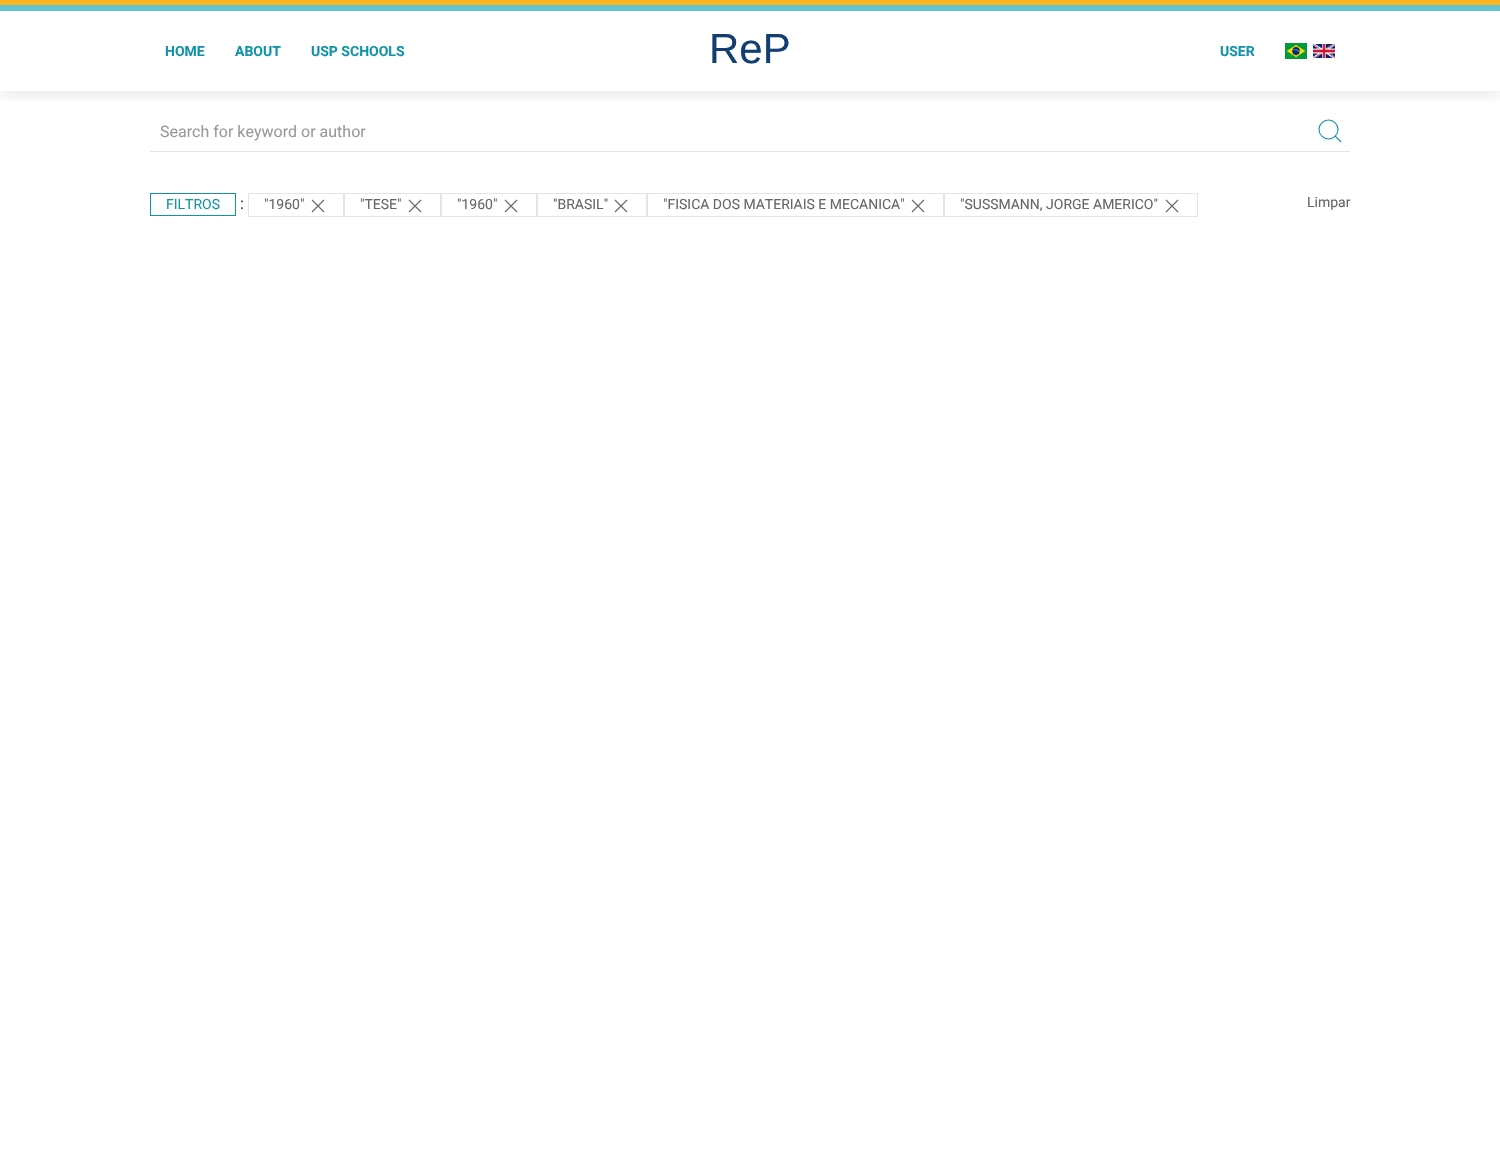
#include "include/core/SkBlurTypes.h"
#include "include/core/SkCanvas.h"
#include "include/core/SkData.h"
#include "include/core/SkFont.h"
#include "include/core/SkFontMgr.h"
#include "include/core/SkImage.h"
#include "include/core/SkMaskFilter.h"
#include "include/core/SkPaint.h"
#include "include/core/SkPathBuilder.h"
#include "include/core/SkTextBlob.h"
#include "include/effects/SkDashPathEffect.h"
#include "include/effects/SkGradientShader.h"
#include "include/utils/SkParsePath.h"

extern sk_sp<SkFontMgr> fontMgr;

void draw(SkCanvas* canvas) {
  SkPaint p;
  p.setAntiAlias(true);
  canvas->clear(SK_ColorWHITE);
  p.setColor(SkColorSetRGB(252, 180, 33));
  canvas->drawRect(SkRect::MakeLTRB(0, 0, 1500, 5), p);
  p.setColor(SkColorSetRGB(100, 196, 210));
  canvas->drawRect(SkRect::MakeLTRB(0, 5, 1500, 11), p);
  canvas->save();
  canvas->clipRect(SkRect::MakeLTRB(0, 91, 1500, 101));
  p.setColor(SkColorSetARGB(20, 0, 0, 0));
  p.setMaskFilter(SkMaskFilter::MakeBlur(kNormal_SkBlurStyle, 7.5f));
  canvas->drawRect(SkRect::MakeLTRB(0, 16, 1500, 96), p);
  p.setMaskFilter(nullptr);
  canvas->restore();
  canvas->drawImageRect(SkImages::DeferredFromEncodedData(SkData::MakeFromFileName("images/1.png")), SkRect::MakeLTRB(1285, 43, 1307, 59), SkSamplingOptions());
  canvas->drawImageRect(SkImages::DeferredFromEncodedData(SkData::MakeFromFileName("images/2.png")), SkRect::MakeLTRB(1313, 44, 1335, 58), SkSamplingOptions());
  p.setColor(SkColorSetRGB(229, 229, 229));
  canvas->drawRect(SkRect::MakeLTRB(150, 151, 1350, 152), p);
  p.setStyle(SkPaint::kStroke_Style);
  p.setStrokeWidth(1.1f);
  p.setColor(SkColorSetRGB(16, 148, 171));
  canvas->drawCircle(1328.5f, 129.5f, 9.5f, p);
  canvas->drawPath(SkPathBuilder().moveTo(1341, 142).lineTo(1335, 136).detach(), p);
  p.setStrokeWidth(1);
  canvas->drawRect(SkRect::MakeLTRB(150.5f, 193.5f, 235.5f, 215.5f), p);
  p.setColor(SkColorSetRGB(229, 229, 229));
  canvas->drawRect(SkRect::MakeLTRB(248.5f, 193.5f, 343.5f, 216.5f), p);
  p.setStrokeWidth(1.1f);
  p.setColor(SkColorSetRGB(102, 102, 102));
  canvas->drawPath(SkPathBuilder().moveTo(324, 212).lineTo(312, 200).moveTo(324, 200).lineTo(312, 212).detach(), p);
  p.setStrokeWidth(1);
  p.setColor(SkColorSetRGB(229, 229, 229));
  canvas->drawRect(SkRect::MakeLTRB(344.5f, 193.5f, 440.5f, 216.5f), p);
  p.setStrokeWidth(1.1f);
  p.setColor(SkColorSetRGB(102, 102, 102));
  canvas->drawPath(SkPathBuilder().moveTo(421, 212).lineTo(409, 200).moveTo(421, 200).lineTo(409, 212).detach(), p);
  p.setStrokeWidth(1);
  p.setColor(SkColorSetRGB(229, 229, 229));
  canvas->drawRect(SkRect::MakeLTRB(441.5f, 193.5f, 536.5f, 216.5f), p);
  p.setStrokeWidth(1.1f);
  p.setColor(SkColorSetRGB(102, 102, 102));
  canvas->drawPath(SkPathBuilder().moveTo(517, 212).lineTo(505, 200).moveTo(517, 200).lineTo(505, 212).detach(), p);
  p.setStrokeWidth(1);
  p.setColor(SkColorSetRGB(229, 229, 229));
  canvas->drawRect(SkRect::MakeLTRB(537.5f, 193.5f, 646.5f, 216.5f), p);
  p.setStrokeWidth(1.1f);
  p.setColor(SkColorSetRGB(102, 102, 102));
  canvas->drawPath(SkPathBuilder().moveTo(627, 212).lineTo(615, 200).moveTo(627, 200).lineTo(615, 212).detach(), p);
  p.setStrokeWidth(1);
  p.setColor(SkColorSetRGB(229, 229, 229));
  canvas->drawRect(SkRect::MakeLTRB(647.5f, 193.5f, 943.5f, 216.5f), p);
  p.setStrokeWidth(1.1f);
  p.setColor(SkColorSetRGB(102, 102, 102));
  canvas->drawPath(SkPathBuilder().moveTo(924, 212).lineTo(912, 200).moveTo(924, 200).lineTo(912, 212).detach(), p);
  p.setStrokeWidth(1);
  p.setColor(SkColorSetRGB(229, 229, 229));
  canvas->drawRect(SkRect::MakeLTRB(944.5f, 193.5f, 1197.5f, 216.5f), p);
  p.setStrokeWidth(1.1f);
  p.setColor(SkColorSetRGB(102, 102, 102));
  canvas->drawPath(SkPathBuilder().moveTo(1178, 212).lineTo(1166, 200).moveTo(1178, 200).lineTo(1166, 212).detach(), p);
  SkFont font1(fontMgr->matchFamilyStyle("Roboto", SkFontStyle::Bold()), 14);
  font1.setSubpixel(true);
  p.setStyle(SkPaint::kFill_Style);
  p.setColor(SkColorSetRGB(16, 148, 171));
  canvas->drawString("HOME", 165, 56, font1, p);
  canvas->drawString("ABOUT", 235, 56, font1, p);
  canvas->drawString("USP SCHOOLS", 311, 56, font1, p);
  SkFont font2(fontMgr->matchFamilyStyle("Liberation Sans", SkFontStyle::Normal()), 42);
  font2.setSubpixel(true);
  p.setColor(SkColorSetRGB(18, 62, 114));
  canvas->drawString("ReP", 709, 63, font2, p);
  p.setColor(SkColorSetRGB(16, 148, 171));
  canvas->drawString("USER", 1220, 56, font1, p);
  SkFont font3(fontMgr->matchFamilyStyle("Roboto", SkFontStyle::Normal()), 16);
  font3.setSubpixel(true);
  p.setColor(SkColorSetRGB(153, 153, 153));
  canvas->drawString("Search for keyword or author", 160, 137, font3, p);
  SkFont font4(fontMgr->matchFamilyStyle("Roboto", SkFontStyle::Normal()), 14);
  font4.setSubpixel(true);
  p.setColor(SkColorSetRGB(16, 148, 171));
  canvas->drawString("FILTROS", 166, 209, font4, p);
  p.setColor(SkColorSetRGB(51, 51, 51));
  canvas->drawString(":", 240, 209, font3, p);
  p.setColor(SkColorSetRGB(102, 102, 102));
  canvas->drawString("\"1960\"", 264, 209, font4, p);
  canvas->drawString("\"TESE\"", 360, 209, font4, p);
  canvas->drawString("\"1960\"", 457, 209, font4, p);
  canvas->drawString("\"BRASIL\"", 553, 209, font4, p);
  canvas->drawString("\"FISICA DOS MATERIAIS E MECANICA\"", 663, 209, font4, p);
  canvas->drawString("\"SUSSMANN, JORGE AMERICO\"", 960, 209, font4, p);
  canvas->drawString("Limpar", 1307, 207, font4, p);
}
